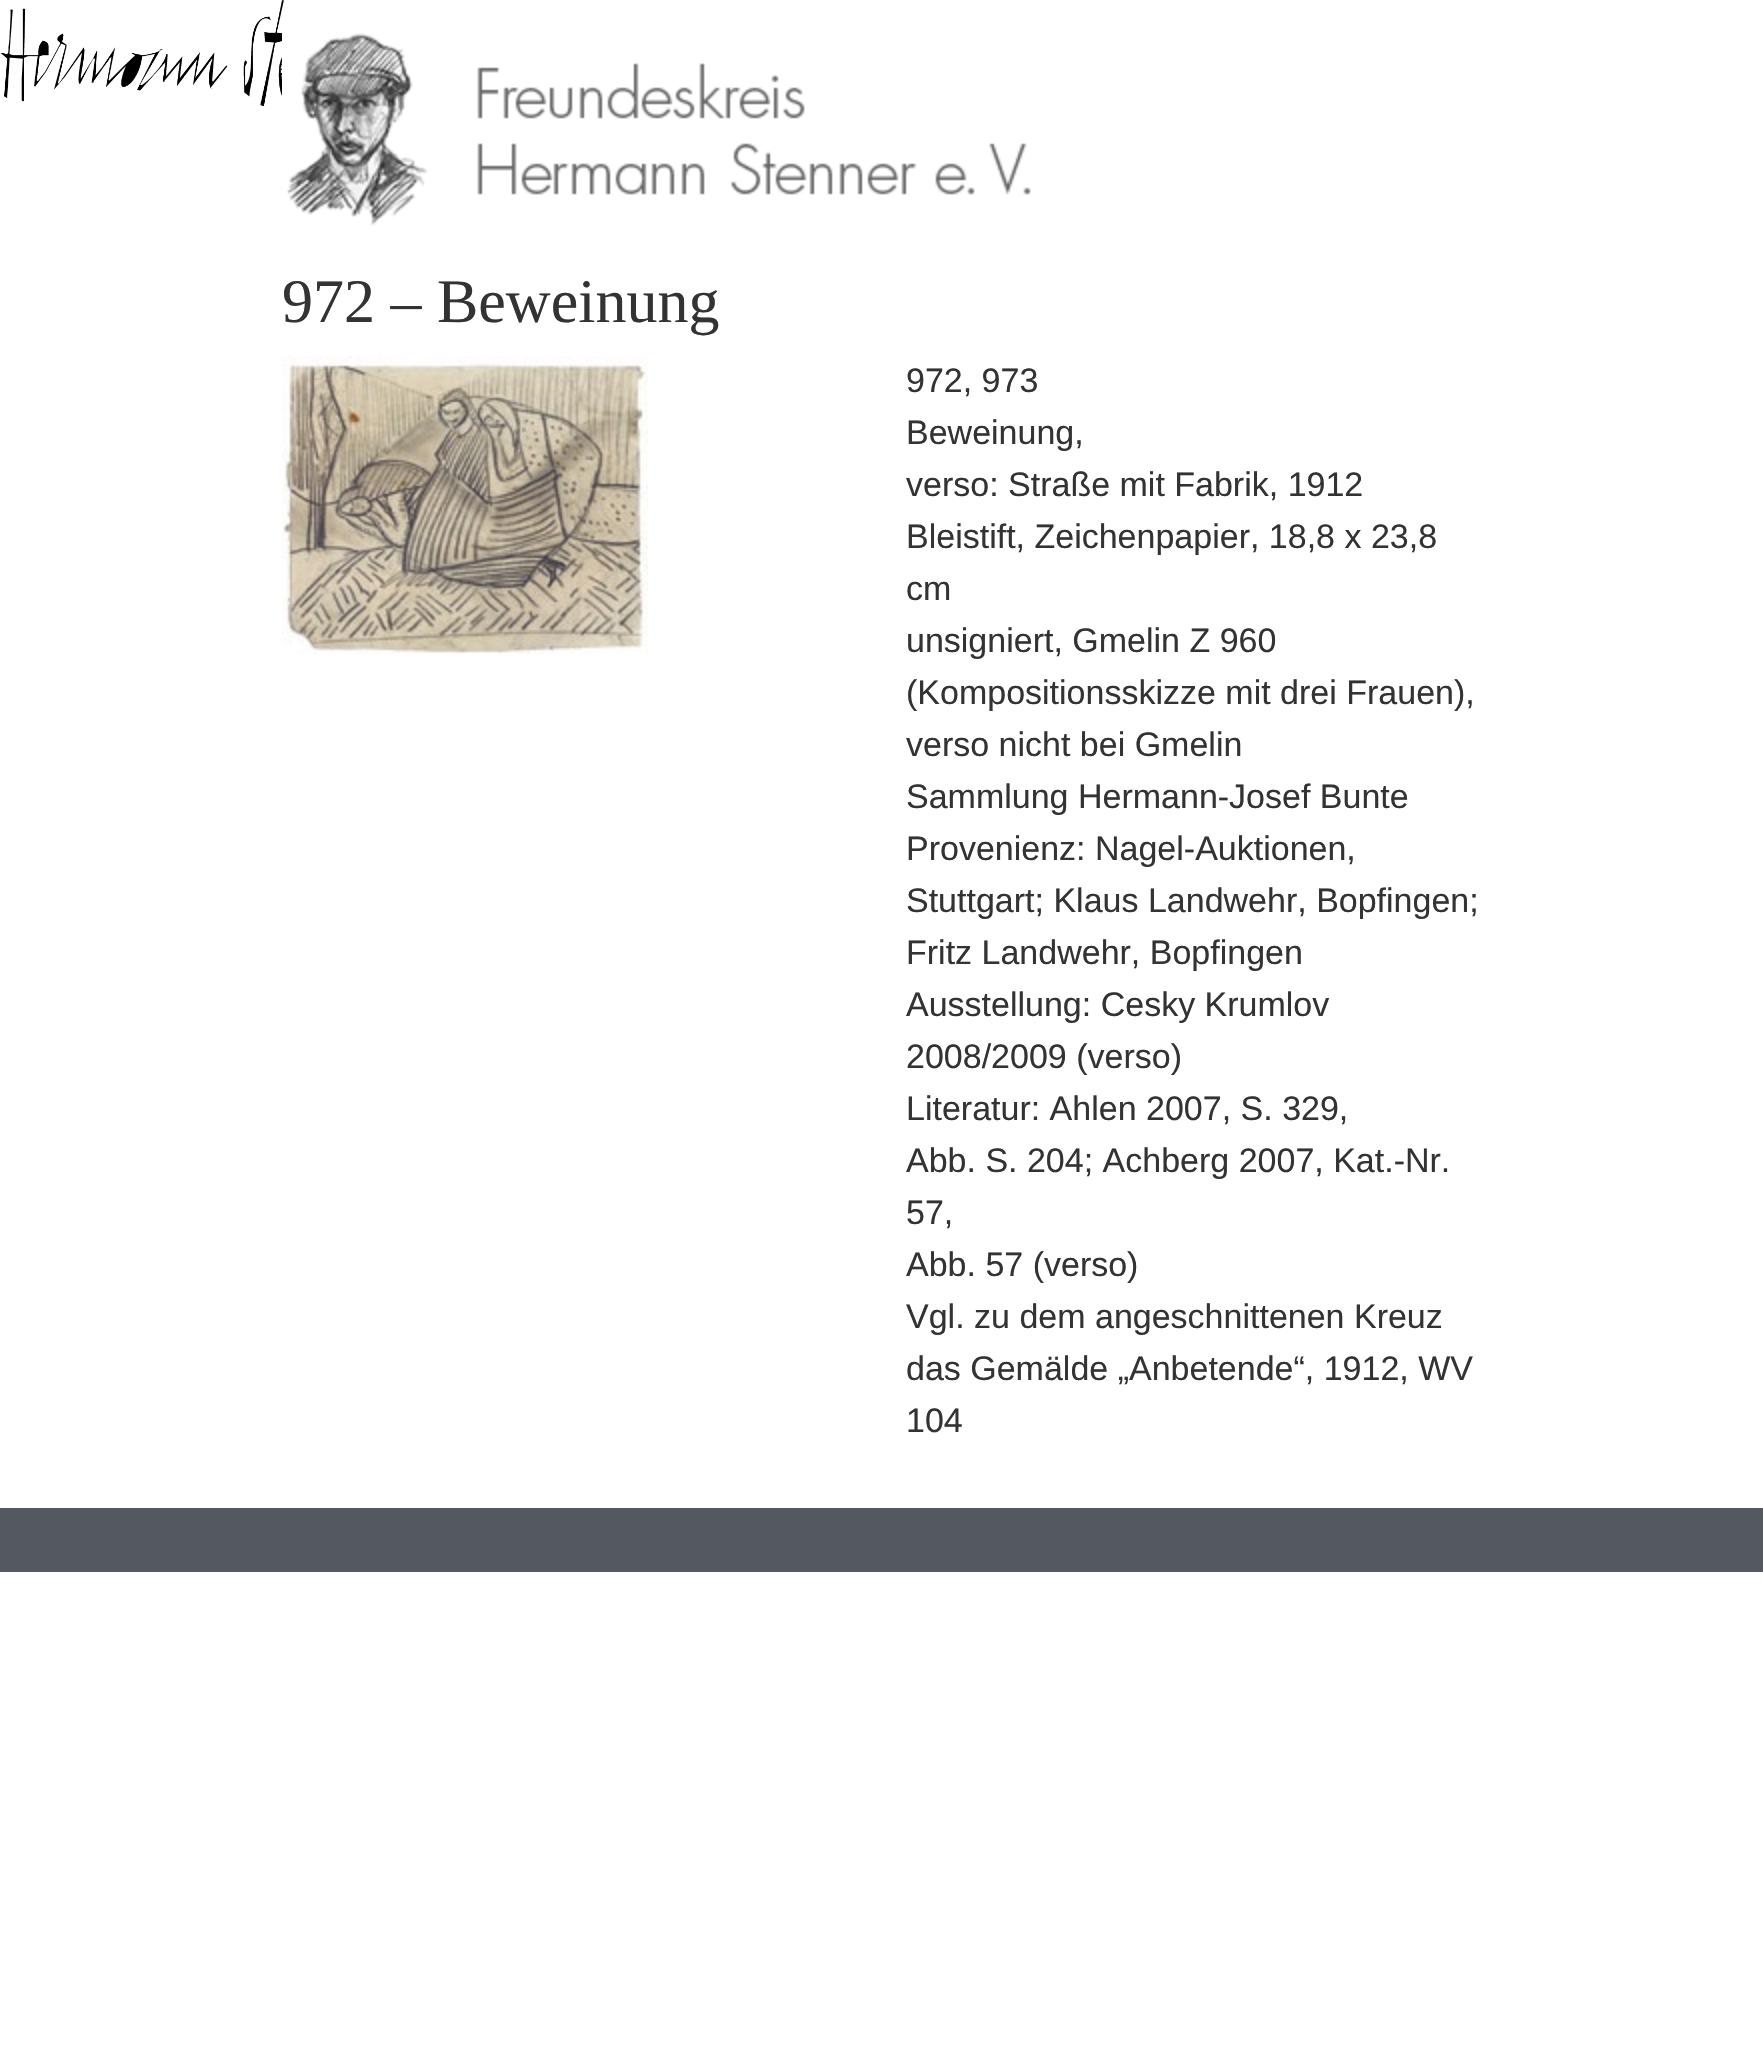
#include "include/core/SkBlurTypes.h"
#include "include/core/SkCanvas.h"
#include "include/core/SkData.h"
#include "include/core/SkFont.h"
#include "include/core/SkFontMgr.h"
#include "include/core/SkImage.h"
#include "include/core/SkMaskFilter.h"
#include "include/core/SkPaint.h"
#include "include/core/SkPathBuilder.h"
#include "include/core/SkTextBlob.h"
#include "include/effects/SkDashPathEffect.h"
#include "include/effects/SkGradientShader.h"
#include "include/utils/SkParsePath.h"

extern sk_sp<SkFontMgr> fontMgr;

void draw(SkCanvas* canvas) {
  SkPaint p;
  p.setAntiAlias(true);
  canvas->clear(SK_ColorWHITE);
  canvas->drawImageRect(SkImages::DeferredFromEncodedData(SkData::MakeFromFileName("images/1.png")), SkRect::MakeLTRB(0, 0, 284, 106), SkSamplingOptions());
  canvas->drawImageRect(SkImages::DeferredFromEncodedData(SkData::MakeFromFileName("images/2.png")), SkRect::MakeLTRB(282, 33, 1031, 226), SkSamplingOptions());
  canvas->drawImageRect(SkImages::DeferredFromEncodedData(SkData::MakeFromFileName("images/3.png")), SkRect::MakeLTRB(282, 356, 648, 654), SkSamplingOptions());
  p.setColor(SkColorSetRGB(84, 89, 95));
  canvas->drawRect(SkRect::MakeLTRB(0, 1508, 1763, 1572), p);
  SkFont font1(fontMgr->matchFamilyStyle("Liberation Serif", SkFontStyle::Normal()), 62);
  font1.setSubpixel(true);
  p.setColor(SkColorSetRGB(51, 51, 51));
  canvas->drawString("972 – Beweinung", 282, 322, font1, p);
  SkFont font2(fontMgr->matchFamilyStyle("Liberation Sans", SkFontStyle::Normal()), 34);
  font2.setSubpixel(true);
  canvas->drawString("972, 973", 906, 392, font2, p);
  canvas->drawString("Beweinung,", 906, 444, font2, p);
  canvas->drawString("verso: Straße mit Fabrik, 1912", 906, 496, font2, p);
  canvas->drawString("Bleistift, Zeichenpapier, 18,8 x 23,8", 906, 548, font2, p);
  canvas->drawString("cm", 906, 600, font2, p);
  canvas->drawString("unsigniert, Gmelin Z 960", 906, 652, font2, p);
  canvas->drawString("(Kompositionsskizze mit drei Frauen),", 906, 704, font2, p);
  canvas->drawString("verso nicht bei Gmelin", 906, 756, font2, p);
  canvas->drawString("Sammlung Hermann-Josef Bunte", 906, 808, font2, p);
  canvas->drawString("Provenienz: Nagel-Auktionen,", 906, 860, font2, p);
  canvas->drawString("Stuttgart; Klaus Landwehr, Bopfingen;", 906, 912, font2, p);
  canvas->drawString("Fritz Landwehr, Bopfingen", 906, 964, font2, p);
  canvas->drawString("Ausstellung: Cesky Krumlov", 906, 1016, font2, p);
  canvas->drawString("2008/2009 (verso)", 906, 1068, font2, p);
  canvas->drawString("Literatur: Ahlen 2007, S. 329,", 906, 1120, font2, p);
  canvas->drawString("Abb. S. 204; Achberg 2007, Kat.-Nr.", 906, 1172, font2, p);
  canvas->drawString("57,", 906, 1224, font2, p);
  canvas->drawString("Abb. 57 (verso)", 906, 1276, font2, p);
  canvas->drawString("Vgl. zu dem angeschnittenen Kreuz", 906, 1328, font2, p);
  canvas->drawString("das Gemälde „Anbetende“, 1912, WV", 906, 1380, font2, p);
  canvas->drawString("104", 906, 1432, font2, p);
}
